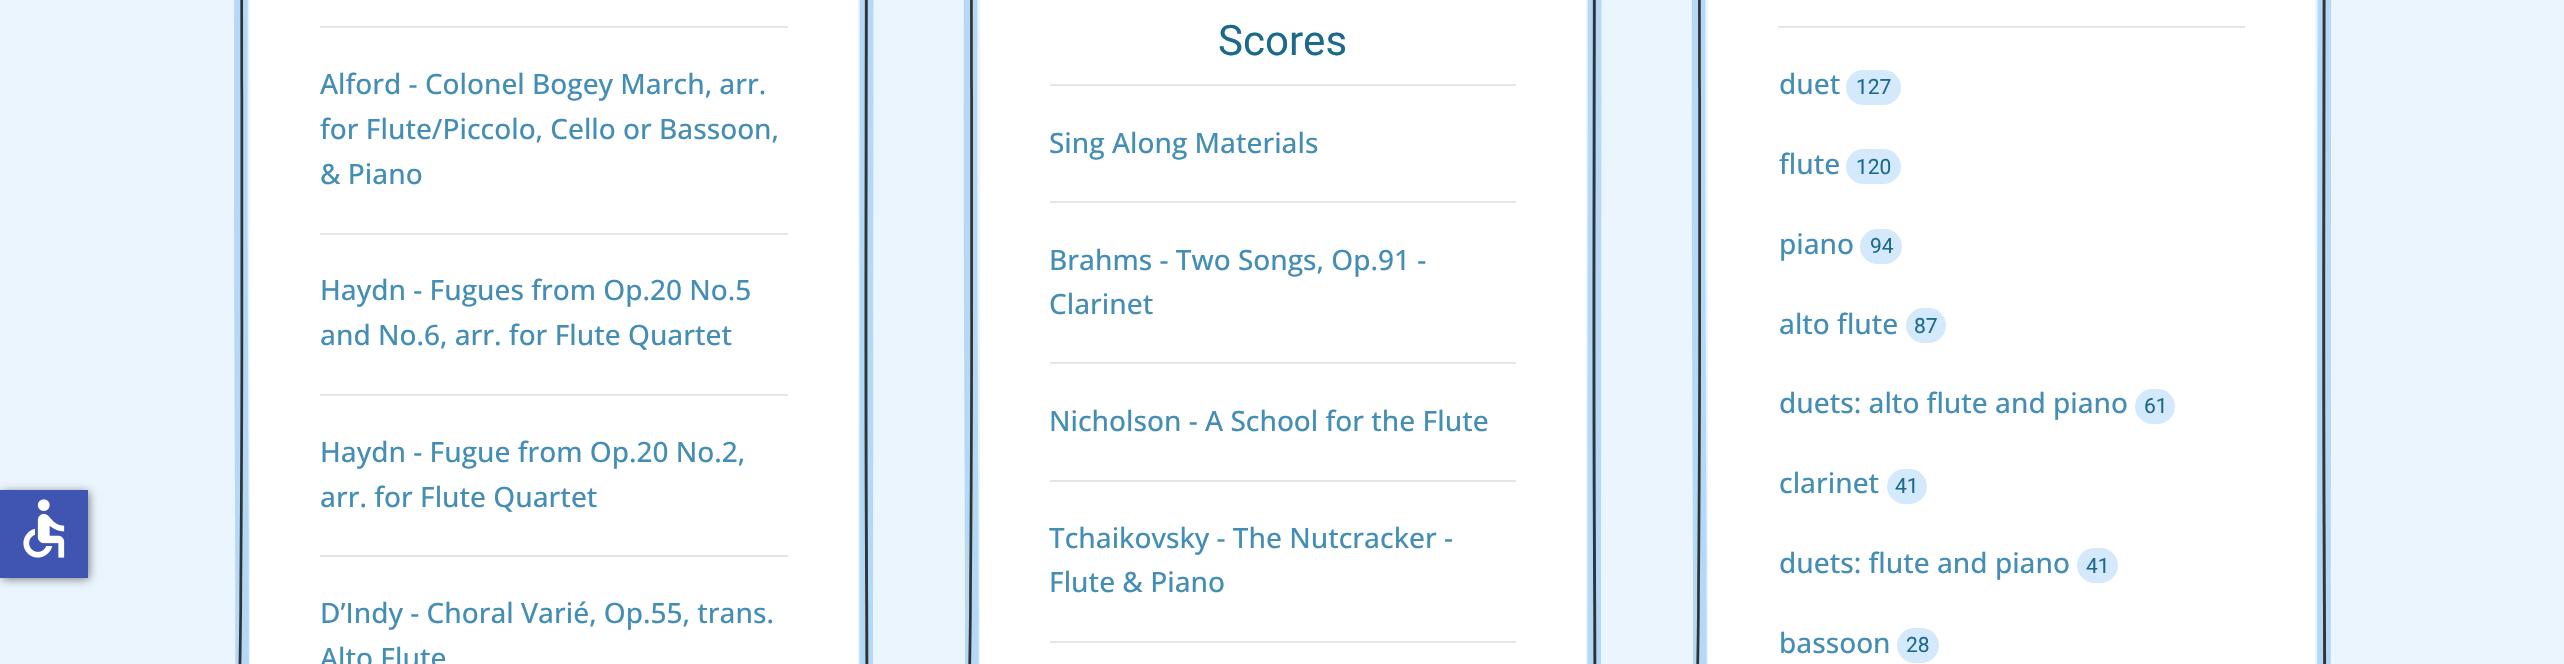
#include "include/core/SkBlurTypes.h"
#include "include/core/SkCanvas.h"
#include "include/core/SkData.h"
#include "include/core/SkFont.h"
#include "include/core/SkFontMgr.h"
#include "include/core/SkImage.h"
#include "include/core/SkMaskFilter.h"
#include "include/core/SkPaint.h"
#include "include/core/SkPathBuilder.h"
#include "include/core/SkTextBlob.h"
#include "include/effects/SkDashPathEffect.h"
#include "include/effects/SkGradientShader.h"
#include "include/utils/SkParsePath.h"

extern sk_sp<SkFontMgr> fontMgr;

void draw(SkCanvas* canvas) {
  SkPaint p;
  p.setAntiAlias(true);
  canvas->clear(SkColorSetRGB(235, 245, 253));
  p.setColor(SkColorSetARGB(128, 0, 0, 0));
  p.setMaskFilter(SkMaskFilter::MakeBlur(kNormal_SkBlurStyle, 4.5f));
  canvas->drawRect(SkRect::MakeLTRB(2, 492, 89, 579), p);
  p.setMaskFilter(nullptr);
  p.setColor(SkColorSetRGB(64, 84, 178));
  canvas->drawRect(SkRect::MakeLTRB(0, 490, 88, 578), p);
  canvas->drawImageRect(SkImages::DeferredFromEncodedData(SkData::MakeFromFileName("images/1.png")), SkRect::MakeLTRB(23, 499, 65, 558), SkSamplingOptions());
  p.setColor(SK_ColorWHITE);
  canvas->drawRect(SkRect::MakeLTRB(250, 0, 858, 664), p);
  canvas->drawImageRect(SkImages::DeferredFromEncodedData(SkData::MakeFromFileName("images/2.png")), SkRect::MakeLTRB(234, 0, 874, 664), SkSamplingOptions());
  p.setColor(SkColorSetRGB(229, 229, 229));
  canvas->drawRect(SkRect::MakeLTRB(320, 26, 788, 28), p);
  canvas->drawRect(SkRect::MakeLTRB(320, 233, 788, 235), p);
  canvas->drawRect(SkRect::MakeLTRB(320, 394, 788, 396), p);
  canvas->drawRect(SkRect::MakeLTRB(320, 555, 788, 557), p);
  p.setColor(SK_ColorWHITE);
  canvas->drawRect(SkRect::MakeLTRB(980, 0, 1586, 664), p);
  canvas->drawImageRect(SkImages::DeferredFromEncodedData(SkData::MakeFromFileName("images/3.png")), SkRect::MakeLTRB(963, 0, 1602, 664), SkSamplingOptions());
  p.setColor(SkColorSetRGB(229, 229, 229));
  canvas->drawRect(SkRect::MakeLTRB(1050, 84, 1516, 86), p);
  canvas->drawRect(SkRect::MakeLTRB(1050, 201, 1516, 203), p);
  canvas->drawRect(SkRect::MakeLTRB(1050, 362, 1516, 364), p);
  canvas->drawRect(SkRect::MakeLTRB(1050, 480, 1516, 482), p);
  canvas->drawRect(SkRect::MakeLTRB(1050, 641, 1516, 643), p);
  p.setColor(SK_ColorWHITE);
  canvas->drawRect(SkRect::MakeLTRB(1708, 0, 2315, 664), p);
  canvas->drawImageRect(SkImages::DeferredFromEncodedData(SkData::MakeFromFileName("images/4.png")), SkRect::MakeLTRB(1691, 0, 2332, 664), SkSamplingOptions());
  p.setColor(SkColorSetRGB(229, 229, 229));
  canvas->drawRect(SkRect::MakeLTRB(1778, 26, 2245, 28), p);
  p.setColor(SkColorSetRGB(212, 233, 251));
  canvas->drawRoundRect(SkRect::MakeLTRB(1846, 70, 1901, 105), 17.5f, 17.5f, p);
  canvas->drawRoundRect(SkRect::MakeLTRB(1846, 149, 1901, 184), 17.5f, 17.5f, p);
  canvas->drawRoundRect(SkRect::MakeLTRB(1860, 229, 1902, 264), 17.5f, 17.5f, p);
  canvas->drawRoundRect(SkRect::MakeLTRB(1906, 308, 1946, 343), 17.5f, 17.5f, p);
  canvas->drawRoundRect(SkRect::MakeLTRB(2135, 389, 2175, 424), 17.5f, 17.5f, p);
  canvas->drawRoundRect(SkRect::MakeLTRB(1887, 469, 1927, 504), 17.5f, 17.5f, p);
  canvas->drawRoundRect(SkRect::MakeLTRB(2077, 548, 2118, 583), 17.5f, 17.5f, p);
  canvas->drawRoundRect(SkRect::MakeLTRB(1897, 628, 1939, 663), 17.5f, 17.5f, p);
  SkFont font1(fontMgr->matchFamilyStyle("Open Sans", SkFontStyle(500, SkFontStyle::kNormal_Width, SkFontStyle::kUpright_Slant)), 28);
  font1.setSubpixel(true);
  p.setColor(SkColorSetRGB(68, 142, 181));
  canvas->drawString("Alford - Colonel Bogey March, arr.", 320, 94, font1, p);
  canvas->drawString("for Flute/Piccolo, Cello or Bassoon,", 320, 139, font1, p);
  canvas->drawString("& Piano", 320, 184, font1, p);
  canvas->drawString("Haydn - Fugues from Op.20 No.5", 320, 300, font1, p);
  canvas->drawString("and No.6, arr. for Flute Quartet", 320, 345, font1, p);
  canvas->drawString("Haydn - Fugue from Op.20 No.2,", 320, 462, font1, p);
  canvas->drawString("arr. for Flute Quartet", 320, 507, font1, p);
  canvas->drawString("D’Indy - Choral Varié, Op.55, trans.", 320, 623, font1, p);
  canvas->drawString("Alto Flute", 320, 668, font1, p);
  SkFont font2(fontMgr->matchFamilyStyle("Roboto", SkFontStyle::Normal()), 42);
  font2.setSubpixel(true);
  p.setColor(SkColorSetRGB(27, 106, 139));
  canvas->drawString("Scores", 1218, 55, font2, p);
  p.setColor(SkColorSetRGB(68, 142, 181));
  canvas->drawString("Sing Along Materials", 1049, 153, font1, p);
  canvas->drawString("Brahms - Two Songs, Op.91 -", 1049, 270, font1, p);
  canvas->drawString("Clarinet", 1049, 314, font1, p);
  canvas->drawString("Nicholson - A School for the Flute", 1049, 431, font1, p);
  canvas->drawString("Tchaikovsky - The Nutcracker -", 1049, 548, font1, p);
  canvas->drawString("Flute & Piano", 1049, 592, font1, p);
  canvas->drawString("duet", 1779, 94, font1, p);
  SkFont font3(fontMgr->matchFamilyStyle("Roboto", SkFontStyle::Normal()), 21);
  font3.setSubpixel(true);
  p.setColor(SkColorSetRGB(27, 106, 139));
  canvas->drawString("127", 1856, 94, font3, p);
  p.setColor(SkColorSetRGB(68, 142, 181));
  canvas->drawString("flute", 1779, 174, font1, p);
  p.setColor(SkColorSetRGB(27, 106, 139));
  canvas->drawString("120", 1856, 174, font3, p);
  p.setColor(SkColorSetRGB(68, 142, 181));
  canvas->drawString("piano", 1779, 254, font1, p);
  p.setColor(SkColorSetRGB(27, 106, 139));
  canvas->drawString("94", 1870, 253, font3, p);
  p.setColor(SkColorSetRGB(68, 142, 181));
  canvas->drawString("alto flute", 1779, 334, font1, p);
  p.setColor(SkColorSetRGB(27, 106, 139));
  canvas->drawString("87", 1914, 333, font3, p);
  p.setColor(SkColorSetRGB(68, 142, 181));
  canvas->drawString("duets: alto flute and piano", 1779, 413, font1, p);
  p.setColor(SkColorSetRGB(27, 106, 139));
  canvas->drawString("61", 2144, 413, font3, p);
  p.setColor(SkColorSetRGB(68, 142, 181));
  canvas->drawString("clarinet", 1779, 493, font1, p);
  p.setColor(SkColorSetRGB(27, 106, 139));
  canvas->drawString("41", 1895, 493, font3, p);
  p.setColor(SkColorSetRGB(68, 142, 181));
  canvas->drawString("duets: flute and piano", 1779, 573, font1, p);
  p.setColor(SkColorSetRGB(27, 106, 139));
  canvas->drawString("41", 2086, 573, font3, p);
  p.setColor(SkColorSetRGB(68, 142, 181));
  canvas->drawString("bassoon", 1779, 653, font1, p);
  p.setColor(SkColorSetRGB(27, 106, 139));
  canvas->drawString("28", 1906, 652, font3, p);
}
